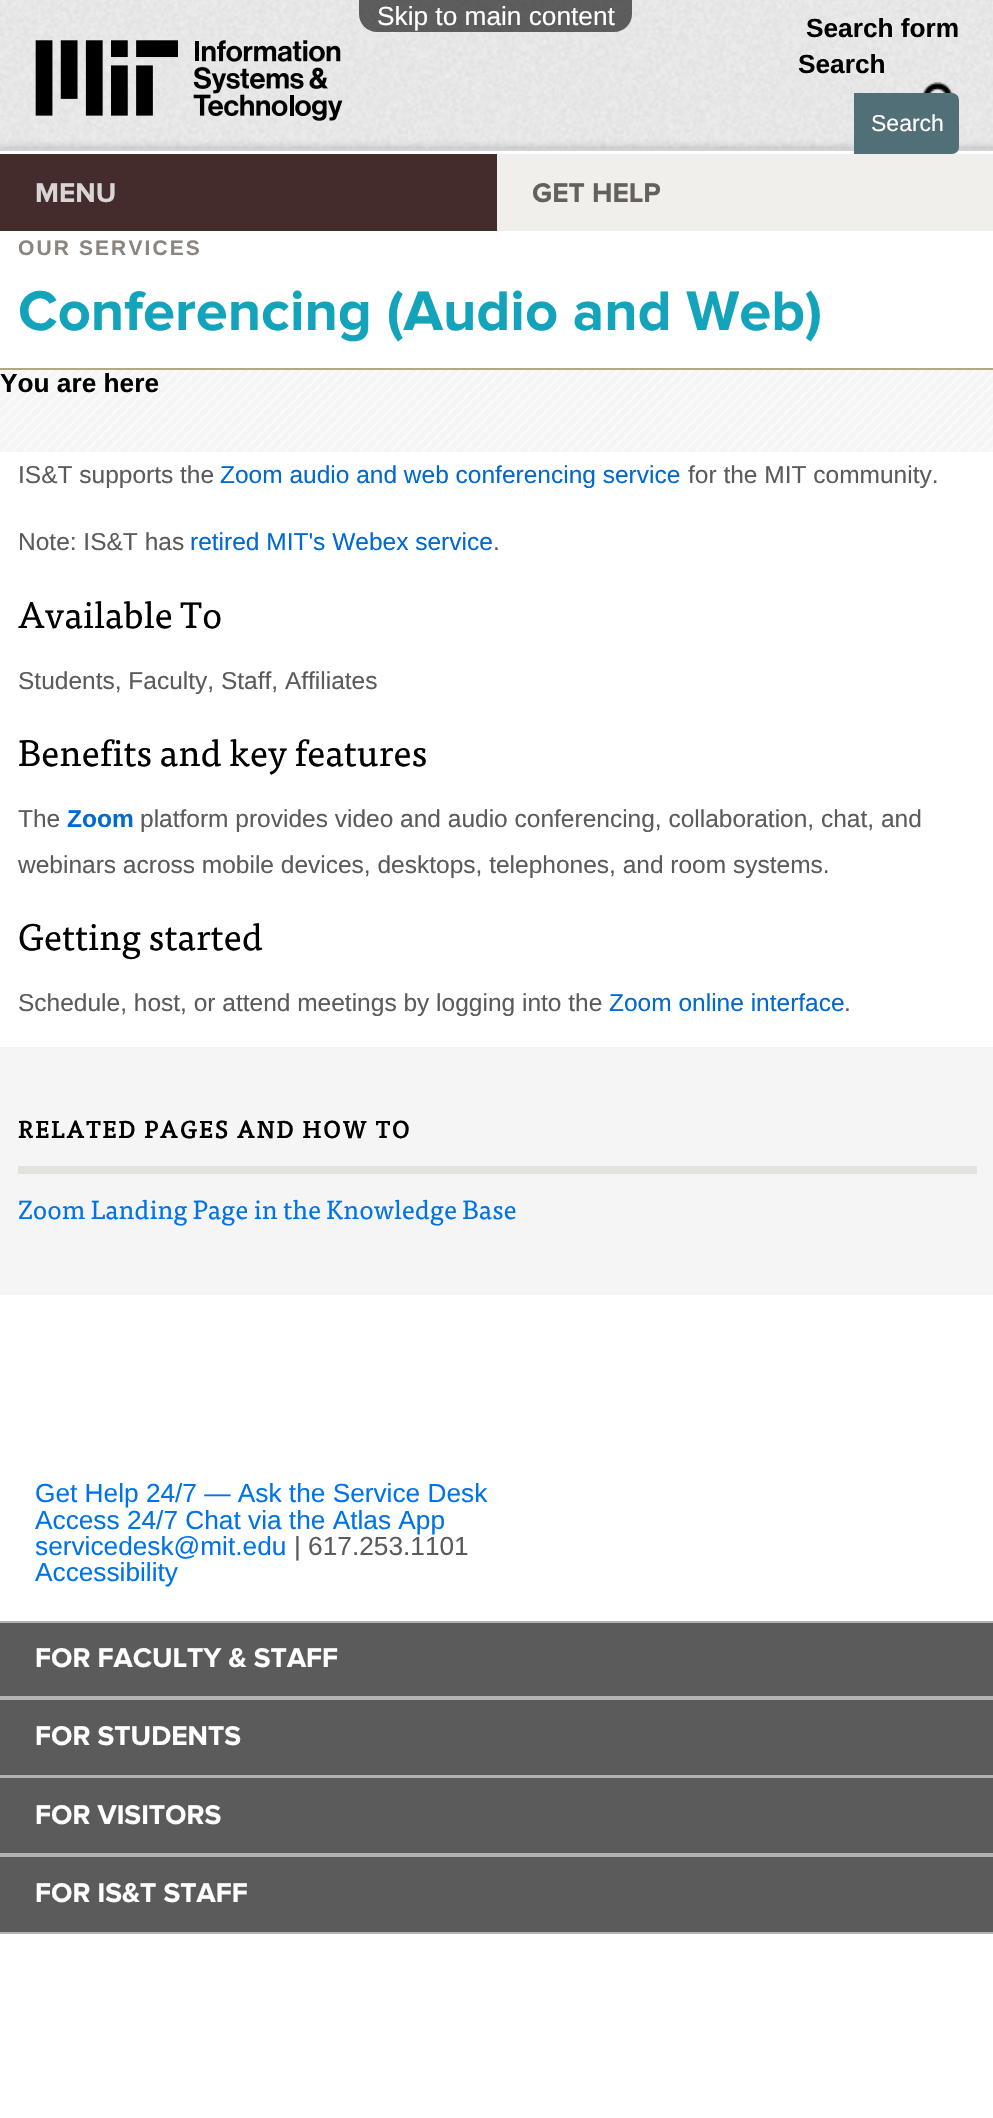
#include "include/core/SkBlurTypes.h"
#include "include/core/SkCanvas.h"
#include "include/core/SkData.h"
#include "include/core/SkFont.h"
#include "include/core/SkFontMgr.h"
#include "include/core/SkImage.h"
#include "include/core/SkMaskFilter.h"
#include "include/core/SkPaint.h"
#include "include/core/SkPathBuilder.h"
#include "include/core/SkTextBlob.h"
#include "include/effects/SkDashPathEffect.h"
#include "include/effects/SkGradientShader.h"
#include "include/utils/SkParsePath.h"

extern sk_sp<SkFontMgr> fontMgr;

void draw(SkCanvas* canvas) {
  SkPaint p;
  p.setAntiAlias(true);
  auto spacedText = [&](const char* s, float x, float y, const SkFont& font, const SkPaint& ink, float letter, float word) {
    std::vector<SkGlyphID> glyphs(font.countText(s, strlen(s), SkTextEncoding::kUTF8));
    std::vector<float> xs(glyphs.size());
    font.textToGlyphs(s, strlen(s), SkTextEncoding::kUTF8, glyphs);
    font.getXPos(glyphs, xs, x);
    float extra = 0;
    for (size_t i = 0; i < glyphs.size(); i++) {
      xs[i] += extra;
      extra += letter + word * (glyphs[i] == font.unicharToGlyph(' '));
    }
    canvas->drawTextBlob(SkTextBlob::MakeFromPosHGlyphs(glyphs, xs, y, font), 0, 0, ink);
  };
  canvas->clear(SK_ColorWHITE);
  p.setColor(SkColorSetRGB(211, 211, 211));
  canvas->drawRect(SkRect::MakeLTRB(0, 148, 993, 151), p);
  canvas->drawImageRect(SkImages::DeferredFromEncodedData(SkData::MakeFromFileName("images/1.png")), SkRect::MakeLTRB(0, 0, 993, 149), SkSamplingOptions());
  p.setColor(SkColorSetARGB(153, 0, 0, 0));
  canvas->drawPath(SkPathBuilder().moveTo(359, 0).lineTo(632, 0).lineTo(632, 14).cubicTo(632, 24, 624, 32, 614, 32).lineTo(377, 32).cubicTo(367, 32, 359, 24, 359, 14).close().detach(), p);
  canvas->drawImageRect(SkImages::DeferredFromEncodedData(SkData::MakeFromFileName("images/2.png")), SkRect::MakeLTRB(35, 40, 343, 121), SkSamplingOptions());
  canvas->drawImageRect(SkImages::DeferredFromEncodedData(SkData::MakeFromFileName("images/3.png")), SkRect::MakeLTRB(922, 82, 953, 94), SkSamplingOptions());
  p.setColor(SkColorSetRGB(81, 111, 118));
  canvas->drawPath(SkPathBuilder().moveTo(855, 94).lineTo(952, 94).cubicTo(955.5f, 94, 958, 96.5f, 958, 100).lineTo(958, 147).cubicTo(958, 150.5f, 955.5f, 153, 952, 153).lineTo(855, 153).close().detach(), p);
  p.setStyle(SkPaint::kStroke_Style);
  p.setStrokeWidth(2);
  canvas->drawPath(SkPathBuilder().moveTo(855, 94).lineTo(952, 94).cubicTo(955.5f, 94, 958, 96.5f, 958, 100).lineTo(958, 147).cubicTo(958, 150.5f, 955.5f, 153, 952, 153).lineTo(855, 153).close().detach(), p);
  p.setStyle(SkPaint::kFill_Style);
  p.setColor(SkColorSetRGB(68, 44, 44));
  canvas->drawRect(SkRect::MakeLTRB(0, 154, 497, 231), p);
  p.setColor(SkColorSetRGB(240, 239, 235));
  canvas->drawRect(SkRect::MakeLTRB(497, 154, 993, 231), p);
  p.setColor(SkColorSetRGB(245, 245, 245));
  canvas->drawRect(SkRect::MakeLTRB(0, 370, 993, 452), p);
  canvas->drawImageRect(SkImages::DeferredFromEncodedData(SkData::MakeFromFileName("images/4.png")), SkRect::MakeLTRB(0, 370, 993, 451), SkSamplingOptions());
  p.setColor(SkColorSetRGB(180, 168, 131));
  canvas->drawRect(SkRect::MakeLTRB(0, 368, 993, 370), p);
  p.setColor(SkColorSetRGB(245, 245, 245));
  canvas->drawRect(SkRect::MakeLTRB(0, 1047, 993, 1295), p);
  p.setColor(SkColorSetRGB(227, 226, 222));
  canvas->drawRect(SkRect::MakeLTRB(18, 1166, 977, 1174), p);
  p.setColor(SkColorSetRGB(91, 91, 91));
  canvas->drawRect(SkRect::MakeLTRB(0, 1623, 993, 1932), p);
  p.setColor(SkColorSetRGB(178, 178, 178));
  canvas->drawRect(SkRect::MakeLTRB(0, 1621, 993, 1623), p);
  canvas->drawRect(SkRect::MakeLTRB(0, 1696, 993, 1700), p);
  canvas->drawRect(SkRect::MakeLTRB(0, 1775, 993, 1778), p);
  canvas->drawRect(SkRect::MakeLTRB(0, 1853, 993, 1857), p);
  canvas->drawRect(SkRect::MakeLTRB(0, 1932, 993, 1934), p);
  SkFont font1(fontMgr->matchFamilyStyle("Liberation Sans", SkFontStyle::Normal()), 26.25f);
  font1.setSubpixel(true);
  p.setColor(SK_ColorWHITE);
  canvas->drawString("Skip to main content", 377, 25, font1, p);
  SkFont font2(fontMgr->matchFamilyStyle("Liberation Sans", SkFontStyle::Bold()), 26.25f);
  font2.setSubpixel(true);
  p.setColor(SK_ColorBLACK);
  canvas->drawString("Search form", 806, 37, font2, p);
  canvas->drawString("Search", 798, 73, font2, p);
  SkFont font3(fontMgr->matchFamilyStyle("Liberation Sans", SkFontStyle::Normal()), 23);
  font3.setSubpixel(true);
  p.setColor(SK_ColorWHITE);
  canvas->drawString("Search", 871, 131, font3, p);
  SkFont font4(fontMgr->matchFamilyStyle("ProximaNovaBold", SkFontStyle::Bold()), 28);
  font4.setSubpixel(true);
  p.setColor(SkColorSetRGB(217, 213, 213));
  canvas->drawString("MENU", 35, 202, font4, p);
  p.setColor(SkColorSetRGB(101, 96, 92));
  canvas->drawString("GET HELP", 532, 202, font4, p);
  SkFont font5(fontMgr->matchFamilyStyle("Liberation Sans", SkFontStyle::Bold()), 21);
  font5.setSubpixel(true);
  p.setColor(SkColorSetRGB(139, 132, 127));
  spacedText("OUR SERVICES", 18, 255, font5, p, 2.1f, 0);
  SkFont font6(fontMgr->matchFamilyStyle("ProximaNovaBold", SkFontStyle::Bold()), 57.75f);
  font6.setSubpixel(true);
  p.setColor(SkColorSetRGB(19, 163, 186));
  canvas->drawString("Conferencing (Audio and Web)", 18, 330, font6, p);
  p.setColor(SK_ColorBLACK);
  canvas->drawString("You are here", 0, 392, font2, p);
  SkFont font7(fontMgr->matchFamilyStyle("Liberation Sans", SkFontStyle::Normal()), 24.5f);
  font7.setSubpixel(true);
  p.setColor(SkColorSetRGB(91, 91, 91));
  canvas->drawString("IS&T supports the", 18, 483, font7, p);
  p.setColor(SkColorSetRGB(0, 105, 210));
  canvas->drawString("Zoom audio and web conferencing service", 220, 483, font7, p);
  p.setColor(SkColorSetRGB(91, 91, 91));
  canvas->drawString("for the MIT community.", 688, 483, font7, p);
  canvas->drawString("Note: IS&T has", 18, 550, font7, p);
  p.setColor(SkColorSetRGB(0, 105, 210));
  canvas->drawString("retired MIT's Webex service", 190, 550, font7, p);
  p.setColor(SkColorSetRGB(91, 91, 91));
  canvas->drawString(".", 493, 550, font7, p);
  SkFont font8(fontMgr->matchFamilyStyle("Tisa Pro", SkFontStyle::Normal()), 36.75f);
  font8.setSubpixel(true);
  p.setColor(SK_ColorBLACK);
  canvas->drawString("Available To", 18, 628, font8, p);
  p.setColor(SkColorSetRGB(91, 91, 91));
  canvas->drawString("Students, Faculty, Staff, Affiliates", 18, 689, font7, p);
  p.setColor(SK_ColorBLACK);
  canvas->drawString("Benefits and key features", 18, 766, font8, p);
  p.setColor(SkColorSetRGB(91, 91, 91));
  canvas->drawString("The", 18, 827, font7, p);
  SkFont font9(fontMgr->matchFamilyStyle("Liberation Sans", SkFontStyle::Bold()), 24.5f);
  font9.setSubpixel(true);
  p.setColor(SkColorSetRGB(0, 105, 210));
  canvas->drawString("Zoom", 67, 827, font9, p);
  p.setColor(SkColorSetRGB(91, 91, 91));
  canvas->drawString("platform provides video and audio conferencing, collaboration, chat, and", 140, 827, font7, p);
  canvas->drawString("webinars across mobile devices, desktops, telephones, and room systems.", 18, 873, font7, p);
  p.setColor(SK_ColorBLACK);
  canvas->drawString("Getting started", 18, 950, font8, p);
  p.setColor(SkColorSetRGB(91, 91, 91));
  canvas->drawString("Schedule, host, or attend meetings by logging into the", 18, 1011, font7, p);
  p.setColor(SkColorSetRGB(0, 105, 210));
  canvas->drawString("Zoom online interface", 609, 1011, font7, p);
  p.setColor(SkColorSetRGB(91, 91, 91));
  canvas->drawString(".", 844, 1011, font7, p);
  SkFont font10(fontMgr->matchFamilyStyle("Tisa Pro", SkFontStyle::Bold()), 23.6f);
  font10.setSubpixel(true);
  p.setColor(SK_ColorBLACK);
  spacedText("RELATED PAGES AND HOW TO", 18, 1138, font10, p, 2.4f, 0);
  SkFont font11(fontMgr->matchFamilyStyle("Tisa Pro", SkFontStyle::Normal()), 26.25f);
  font11.setSubpixel(true);
  p.setColor(SkColorSetRGB(0, 115, 233));
  canvas->drawString("Zoom Landing Page in the Knowledge Base", 18, 1219, font11, p);
  canvas->drawString("Get Help 24/7 — Ask the Service Desk", 35, 1502, font1, p);
  canvas->drawString("Access 24/7 Chat via the Atlas App", 35, 1529, font1, p);
  canvas->drawString("servicedesk@mit.edu", 35, 1555, font1, p);
  p.setColor(SkColorSetRGB(91, 91, 91));
  canvas->drawString("| 617.253.1101", 294, 1555, font1, p);
  p.setColor(SkColorSetRGB(0, 115, 233));
  canvas->drawString("Accessibility", 35, 1581, font1, p);
  p.setColor(SK_ColorWHITE);
  canvas->drawString("FOR FACULTY & STAFF", 35, 1667, font4, p);
  canvas->drawString("FOR STUDENTS", 35, 1745, font4, p);
  canvas->drawString("FOR VISITORS", 35, 1824, font4, p);
  canvas->drawString("FOR IS&T STAFF", 35, 1902, font4, p);
}
